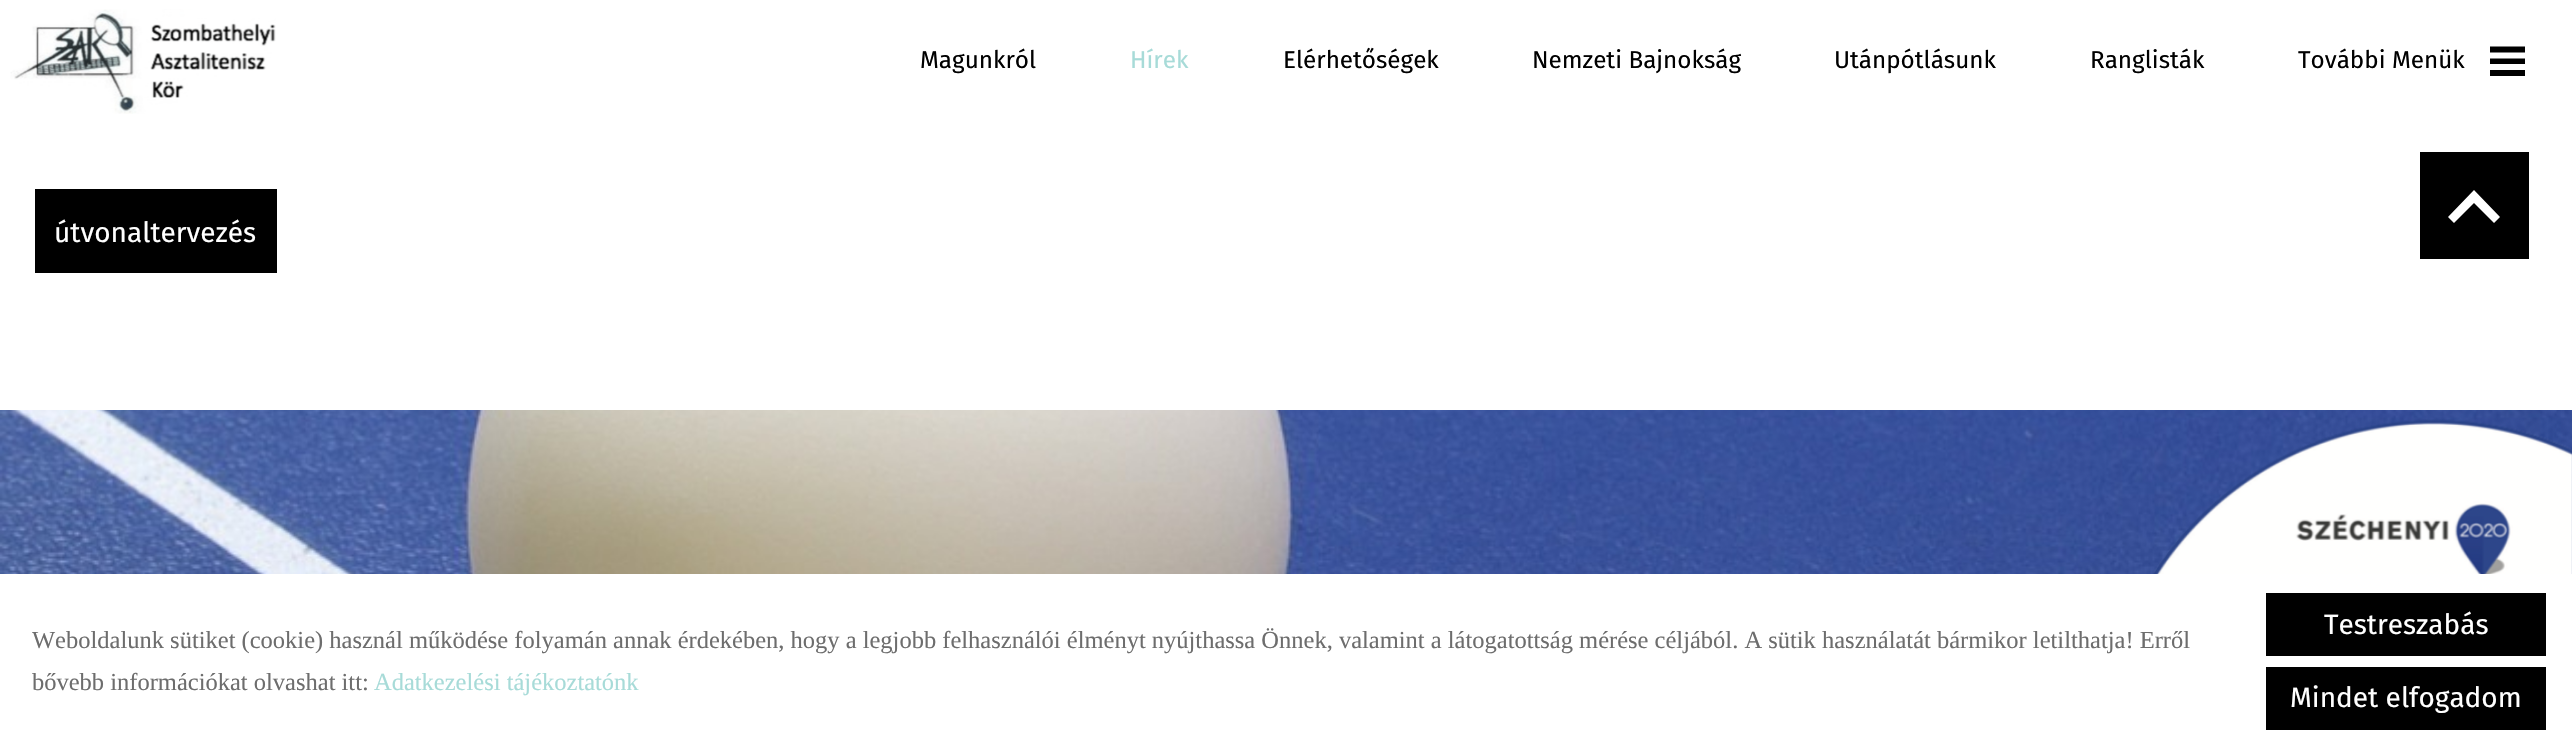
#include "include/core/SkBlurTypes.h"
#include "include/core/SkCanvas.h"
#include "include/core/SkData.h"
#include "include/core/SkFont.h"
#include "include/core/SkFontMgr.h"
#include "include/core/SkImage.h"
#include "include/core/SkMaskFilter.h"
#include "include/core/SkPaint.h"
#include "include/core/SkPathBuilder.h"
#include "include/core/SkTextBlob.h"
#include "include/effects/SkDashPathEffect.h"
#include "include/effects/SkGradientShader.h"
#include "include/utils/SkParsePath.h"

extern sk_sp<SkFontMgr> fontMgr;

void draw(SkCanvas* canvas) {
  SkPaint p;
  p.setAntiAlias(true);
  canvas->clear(SK_ColorWHITE);
  canvas->drawImageRect(SkImages::DeferredFromEncodedData(SkData::MakeFromFileName("images/1.png")), SkRect::MakeLTRB(10, 9, 276, 114), SkSamplingOptions());
  p.setColor(SK_ColorBLACK);
  canvas->drawPath(SkPathBuilder().moveTo(2490, 58.5f).lineTo(2490, 64).lineTo(2525, 64).lineTo(2525, 58.5f).close().moveTo(2490, 70).lineTo(2490, 76).lineTo(2525, 76).lineTo(2525, 70).close().moveTo(2490, 46.5f).lineTo(2490, 52.5f).lineTo(2525, 52.5f).lineTo(2525, 46.5f).close().detach(), p);
  canvas->drawRect(SkRect::MakeLTRB(35, 189, 277, 273), p);
  canvas->drawImageRect(SkImages::DeferredFromEncodedData(SkData::MakeFromFileName("images/3.png")), SkRect::MakeLTRB(0, 410, 2572, 574), SkSamplingOptions());
  canvas->drawImageRect(SkImages::DeferredFromEncodedData(SkData::MakeFromFileName("images/2.png")), SkRect::MakeLTRB(2152, 419, 2572, 574), SkSamplingOptions());
  p.setStyle(SkPaint::kStroke_Style);
  p.setStrokeWidth(2);
  canvas->drawRect(SkRect::MakeLTRB(2421, 153, 2528, 258), p);
  canvas->save();
  canvas->clipRect(SkRect::MakeLTRB(2422, 154, 2527, 257));
  p.setStyle(SkPaint::kFill_Style);
  canvas->drawPath(SkPathBuilder().moveTo(2527, 154).lineTo(2527, 259).lineTo(2422, 259).lineTo(2422, 154).close().moveTo(2474, 190).lineTo(2448, 217).lineTo(2454, 223).lineTo(2474, 203).lineTo(2494, 223).lineTo(2500, 217).close().detach(), p);
  canvas->restore();
  canvas->drawRect(SkRect::MakeLTRB(2266, 593, 2546, 656), p);
  canvas->drawRect(SkRect::MakeLTRB(2266, 667, 2546, 730), p);
  SkFont font1(fontMgr->matchFamilyStyle("Fira Sans", SkFontStyle::Normal()), 24.25f);
  font1.setSubpixel(true);
  canvas->drawString("Magunkról", 920, 68, font1, p);
  p.setColor(SkColorSetRGB(167, 219, 216));
  canvas->drawString("Hírek", 1130, 68, font1, p);
  p.setColor(SK_ColorBLACK);
  canvas->drawString("Elérhetőségek", 1283, 68, font1, p);
  canvas->drawString("Nemzeti Bajnokság", 1532, 68, font1, p);
  canvas->drawString("Utánpótlásunk", 1834, 68, font1, p);
  canvas->drawString("Ranglisták", 2090, 68, font1, p);
  canvas->drawString("További Menük", 2298, 68, font1, p);
  SkFont font2(fontMgr->matchFamilyStyle("Fira Sans", SkFontStyle::Normal()), 28);
  font2.setSubpixel(true);
  p.setColor(SK_ColorWHITE);
  canvas->drawString("útvonaltervezés", 54, 242, font2, p);
  SkFont font3(fontMgr->matchFamilyStyle("Liberation Serif", SkFontStyle::Normal()), 24.5f);
  font3.setSubpixel(true);
  p.setColor(SkColorSetRGB(109, 109, 109));
  canvas->drawString("Weboldalunk sütiket (cookie) használ működése folyamán annak érdekében, hogy a legjobb felhasználói élményt nyújthassa Önnek, valamint a látogatottság mérése céljából. A sütik használatát bármikor letilthatja! Erről", 32, 648, font3, p);
  canvas->drawString("bővebb információkat olvashat itt:", 32, 690, font3, p);
  p.setColor(SkColorSetRGB(167, 219, 216));
  canvas->drawString("Adatkezelési tájékoztatónk", 374, 690, font3, p);
  p.setColor(SK_ColorWHITE);
  canvas->drawString("Testreszabás", 2324, 634, font2, p);
  canvas->drawString("Mindet elfogadom", 2290, 707, font2, p);
}
